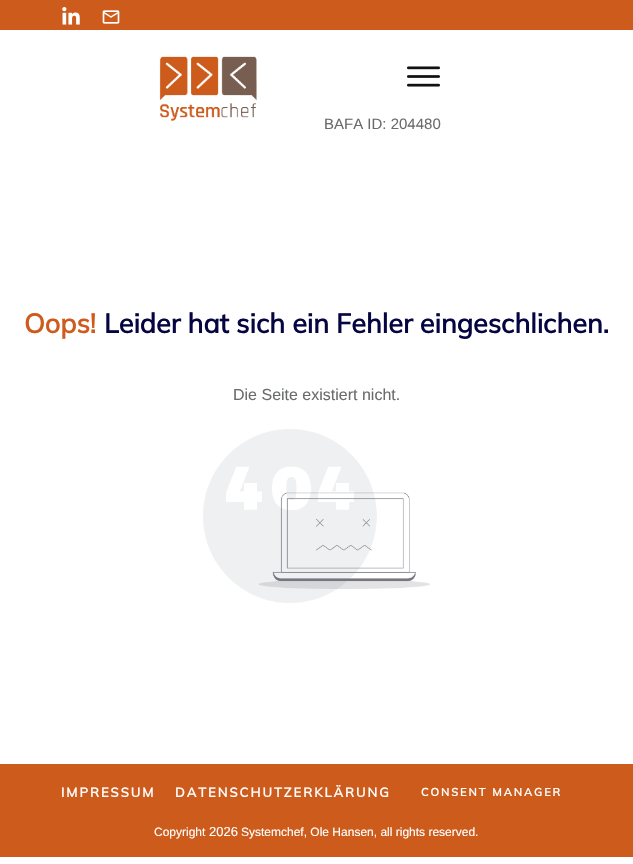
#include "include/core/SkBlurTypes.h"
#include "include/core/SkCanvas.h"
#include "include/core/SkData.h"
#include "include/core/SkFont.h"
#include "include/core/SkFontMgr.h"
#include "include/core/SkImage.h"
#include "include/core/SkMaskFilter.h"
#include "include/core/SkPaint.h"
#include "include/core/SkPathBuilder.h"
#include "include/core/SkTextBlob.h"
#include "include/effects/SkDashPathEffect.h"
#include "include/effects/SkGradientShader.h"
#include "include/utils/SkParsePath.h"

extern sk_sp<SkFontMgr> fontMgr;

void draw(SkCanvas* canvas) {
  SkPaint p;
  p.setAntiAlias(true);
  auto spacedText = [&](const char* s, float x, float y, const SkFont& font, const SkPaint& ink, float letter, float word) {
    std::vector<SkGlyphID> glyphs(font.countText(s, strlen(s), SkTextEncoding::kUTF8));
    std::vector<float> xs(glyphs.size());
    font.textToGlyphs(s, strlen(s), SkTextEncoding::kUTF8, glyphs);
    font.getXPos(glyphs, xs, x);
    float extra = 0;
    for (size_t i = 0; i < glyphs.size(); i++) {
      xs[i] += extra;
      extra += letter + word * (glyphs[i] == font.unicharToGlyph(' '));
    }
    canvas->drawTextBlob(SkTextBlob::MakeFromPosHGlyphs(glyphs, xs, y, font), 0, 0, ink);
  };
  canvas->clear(SK_ColorWHITE);
  p.setColor(SkColorSetRGB(205, 91, 28));
  canvas->drawRect(SkRect::MakeLTRB(0, 0, 633, 30), p);
  canvas->drawImageRect(SkImages::DeferredFromEncodedData(SkData::MakeFromFileName("images/1.png")), SkRect::MakeLTRB(62, 7, 80, 25), SkSamplingOptions());
  canvas->drawImageRect(SkImages::DeferredFromEncodedData(SkData::MakeFromFileName("images/2.png")), SkRect::MakeLTRB(102, 10, 120, 24), SkSamplingOptions());
  canvas->drawImageRect(SkImages::DeferredFromEncodedData(SkData::MakeFromFileName("images/3.png")), SkRect::MakeLTRB(159, 56, 257, 121), SkSamplingOptions());
  canvas->drawImageRect(SkImages::DeferredFromEncodedData(SkData::MakeFromFileName("images/4.png")), SkRect::MakeLTRB(407, 66, 440, 87), SkSamplingOptions());
  canvas->drawImageRect(SkImages::DeferredFromEncodedData(SkData::MakeFromFileName("images/5.png")), SkRect::MakeLTRB(203, 429, 430, 603), SkSamplingOptions());
  canvas->drawRect(SkRect::MakeLTRB(0, 764, 633, 857), p);
  SkFont font1(fontMgr->matchFamilyStyle("Liberation Sans", SkFontStyle::Normal()), 15);
  font1.setSubpixel(true);
  p.setColor(SkColorSetRGB(106, 107, 108));
  canvas->drawString("BAFA ID: 204480", 324, 129, font1, p);
  SkFont font2(fontMgr->matchFamilyStyle("Mulish", SkFontStyle::Bold()), 27);
  font2.setSubpixel(true);
  p.setColor(SkColorSetRGB(206, 91, 28));
  canvas->drawString("Oops!", 24, 333, font2, p);
  p.setColor(SkColorSetRGB(5, 5, 65));
  canvas->drawString("Leider hat sich ein Fehler eingeschlichen.", 104, 333, font2, p);
  SkFont font3(fontMgr->matchFamilyStyle("Liberation Sans", SkFontStyle::Normal()), 16);
  font3.setSubpixel(true);
  p.setColor(SkColorSetRGB(106, 107, 108));
  canvas->drawString("Die Seite existiert nicht.", 233, 400, font3, p);
  SkFont font4(fontMgr->matchFamilyStyle("Mulish", SkFontStyle::Bold()), 13);
  font4.setSubpixel(true);
  p.setColor(SK_ColorWHITE);
  spacedText("IMPRESSUM", 61, 797, font4, p, 2, 0);
  spacedText("DATENSCHUTZERKLÄRUNG", 175, 797, font4, p, 2, 0);
  SkFont font5(fontMgr->matchFamilyStyle("Mulish", SkFontStyle::Bold()), 11);
  font5.setSubpixel(true);
  spacedText("CONSENT MANAGER", 421, 796, font5, p, 2, 0);
  SkFont font6(fontMgr->matchFamilyStyle("Liberation Sans", SkFontStyle::Normal()), 12);
  font6.setSubpixel(true);
  canvas->drawString("Copyright", 154, 836, font6, p);
  SkFont font7(fontMgr->matchFamilyStyle("Liberation Sans", SkFontStyle::Normal()), 13);
  font7.setSubpixel(true);
  canvas->drawString("2026", 209, 836, font7, p);
  canvas->drawString("Systemchef, Ole Hansen, all rights reserved.", 241, 836, font6, p);
}
